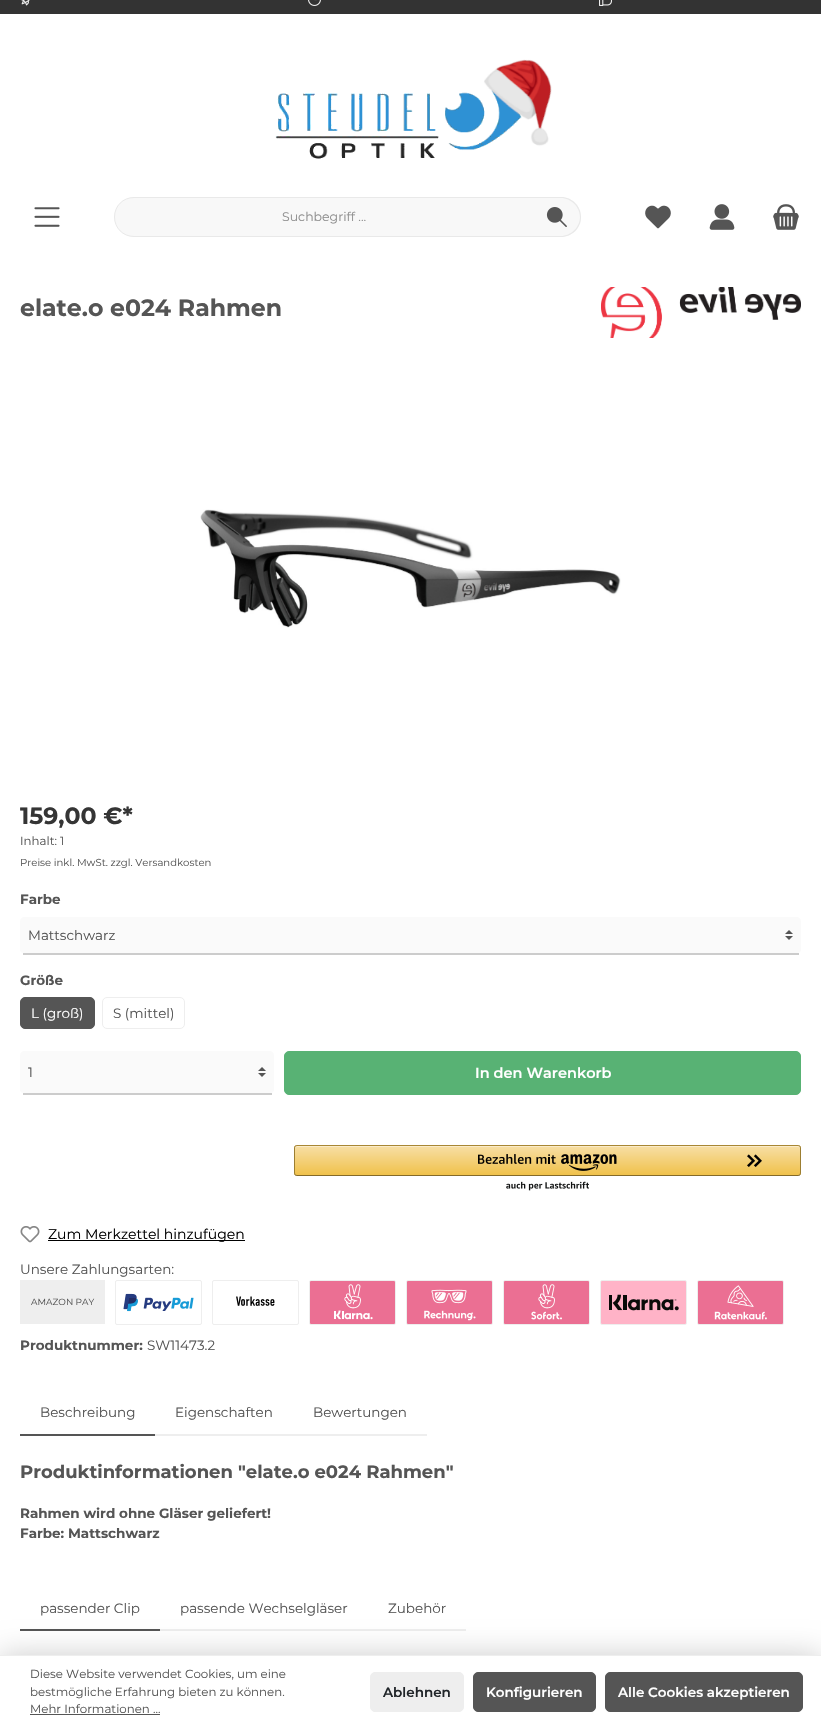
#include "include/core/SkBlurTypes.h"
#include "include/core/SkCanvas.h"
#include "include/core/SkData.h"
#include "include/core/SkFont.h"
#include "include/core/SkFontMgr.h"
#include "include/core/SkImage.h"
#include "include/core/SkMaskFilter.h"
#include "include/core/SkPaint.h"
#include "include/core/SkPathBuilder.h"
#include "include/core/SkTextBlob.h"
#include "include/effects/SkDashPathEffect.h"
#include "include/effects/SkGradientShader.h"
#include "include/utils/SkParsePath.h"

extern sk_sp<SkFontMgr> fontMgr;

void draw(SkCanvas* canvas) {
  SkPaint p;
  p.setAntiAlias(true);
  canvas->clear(SK_ColorWHITE);
  p.setColor(SkColorSetRGB(51, 51, 51));
  canvas->drawRect(SkRect::MakeLTRB(0, 0, 821, 14), p);
  canvas->drawImageRect(SkImages::DeferredFromEncodedData(SkData::MakeFromFileName("images/1.png")), SkRect::MakeLTRB(21, 0, 30, 6), SkSamplingOptions());
  canvas->drawImageRect(SkImages::DeferredFromEncodedData(SkData::MakeFromFileName("images/2.png")), SkRect::MakeLTRB(308, 0, 321, 6), SkSamplingOptions());
  canvas->drawImageRect(SkImages::DeferredFromEncodedData(SkData::MakeFromFileName("images/3.png")), SkRect::MakeLTRB(599, 0, 612, 6), SkSamplingOptions());
  canvas->drawImageRect(SkImages::DeferredFromEncodedData(SkData::MakeFromFileName("images/4.png")), SkRect::MakeLTRB(275, 59, 552, 159), SkSamplingOptions());
  canvas->drawImageRect(SkImages::DeferredFromEncodedData(SkData::MakeFromFileName("images/5.png")), SkRect::MakeLTRB(34, 207, 60, 227), SkSamplingOptions());
  p.setColor(SkColorSetRGB(248, 248, 248));
  canvas->drawPath(SkPathBuilder().moveTo(134, 197.5f).lineTo(534.5f, 197.5f).lineTo(534.5f, 236.5f).lineTo(134, 236.5f).cubicTo(123, 236.5f, 114.5f, 228, 114.5f, 217).cubicTo(114.5f, 206, 123, 197.5f, 134, 197.5f).close().detach(), p);
  p.setStyle(SkPaint::kStroke_Style);
  p.setStrokeWidth(1);
  p.setColor(SkColorSetRGB(233, 233, 233));
  canvas->drawPath(SkPathBuilder().moveTo(134, 197.5f).lineTo(534.5f, 197.5f).lineTo(534.5f, 236.5f).lineTo(134, 236.5f).cubicTo(123, 236.5f, 114.5f, 228, 114.5f, 217).cubicTo(114.5f, 206, 123, 197.5f, 134, 197.5f).close().detach(), p);
  p.setStyle(SkPaint::kFill_Style);
  p.setColor(SkColorSetRGB(248, 248, 248));
  canvas->drawPath(SkPathBuilder().moveTo(534, 197).lineTo(561, 197).cubicTo(572, 197, 581, 206, 581, 217).cubicTo(581, 228, 572, 237, 561, 237).lineTo(534, 237).close().detach(), p);
  p.setColor(SkColorSetRGB(233, 233, 233));
  canvas->drawPath(SkPathBuilder(SkPathFillType::kEvenOdd).moveTo(534, 197).lineTo(561, 197).cubicTo(572, 197, 581, 206, 581, 217).cubicTo(581, 228, 572, 237, 561, 237).lineTo(534, 237).close().moveTo(534, 198).lineTo(561, 198).cubicTo(571, 198, 580, 207, 580, 217).cubicTo(580, 227, 571, 236, 561, 236).lineTo(534, 236).close().detach(), p);
  canvas->drawImageRect(SkImages::DeferredFromEncodedData(SkData::MakeFromFileName("images/6.png")), SkRect::MakeLTRB(546, 207, 567, 227), SkSamplingOptions());
  canvas->drawImageRect(SkImages::DeferredFromEncodedData(SkData::MakeFromFileName("images/7.png")), SkRect::MakeLTRB(645, 205, 671, 229), SkSamplingOptions());
  canvas->drawImageRect(SkImages::DeferredFromEncodedData(SkData::MakeFromFileName("images/8.png")), SkRect::MakeLTRB(709, 204, 735, 230), SkSamplingOptions());
  canvas->drawImageRect(SkImages::DeferredFromEncodedData(SkData::MakeFromFileName("images/9.png")), SkRect::MakeLTRB(773, 204, 799, 230), SkSamplingOptions());
  canvas->drawImageRect(SkImages::DeferredFromEncodedData(SkData::MakeFromFileName("images/10.png")), SkRect::MakeLTRB(601, 287, 801, 338), SkSamplingOptions());
  canvas->drawImageRect(SkImages::DeferredFromEncodedData(SkData::MakeFromFileName("images/11.png")), SkRect::MakeLTRB(200, 509, 621, 628), SkSamplingOptions());
  p.setColor(SkColorSetRGB(250, 250, 250));
  canvas->drawPath(SkPathBuilder().moveTo(25, 917).lineTo(796, 917).cubicTo(799, 917, 801, 919, 801, 922).lineTo(801, 950).cubicTo(801, 952, 799, 953, 796, 953).lineTo(25, 953).cubicTo(22, 953, 20, 952, 20, 950).lineTo(20, 922).cubicTo(20, 919, 22, 917, 25, 917).close().detach(), p);
  canvas->drawImageRect(SkImages::DeferredFromEncodedData(SkData::MakeFromFileName("images/12.png")), SkRect::MakeLTRB(785, 930, 793, 940), SkSamplingOptions());
  p.setColor(SkColorSetRGB(204, 204, 204));
  canvas->drawRect(SkRect::MakeLTRB(23, 953, 799, 955), p);
  p.setColor(SkColorSetRGB(85, 85, 85));
  canvas->drawRoundRect(SkRect::MakeLTRB(20.5f, 997.5f, 94.5f, 1028.5f), 4.5f, 4.5f, p);
  p.setStyle(SkPaint::kStroke_Style);
  canvas->drawRoundRect(SkRect::MakeLTRB(20.5f, 997.5f, 94.5f, 1028.5f), 4.5f, 4.5f, p);
  p.setColor(SkColorSetRGB(238, 238, 238));
  canvas->drawRoundRect(SkRect::MakeLTRB(102.5f, 997.5f, 184.5f, 1028.5f), 4.5f, 4.5f, p);
  p.setStyle(SkPaint::kFill_Style);
  p.setColor(SkColorSetRGB(250, 250, 250));
  canvas->drawPath(SkPathBuilder().moveTo(25, 1051).lineTo(269, 1051).cubicTo(272, 1051, 274, 1053, 274, 1056).lineTo(274, 1090).cubicTo(274, 1092, 272, 1093, 269, 1093).lineTo(25, 1093).cubicTo(22, 1093, 20, 1092, 20, 1090).lineTo(20, 1056).cubicTo(20, 1053, 22, 1051, 25, 1051).close().detach(), p);
  canvas->drawImageRect(SkImages::DeferredFromEncodedData(SkData::MakeFromFileName("images/12.png")), SkRect::MakeLTRB(258, 1067, 266, 1077), SkSamplingOptions());
  p.setColor(SkColorSetRGB(204, 204, 204));
  canvas->drawRect(SkRect::MakeLTRB(23, 1093, 272, 1095), p);
  p.setColor(SkColorSetRGB(88, 178, 116));
  canvas->drawRoundRect(SkRect::MakeLTRB(284.5f, 1051.5f, 800.5f, 1094.5f), 4.5f, 4.5f, p);
  p.setStyle(SkPaint::kStroke_Style);
  canvas->drawRoundRect(SkRect::MakeLTRB(284.5f, 1051.5f, 800.5f, 1094.5f), 4.5f, 4.5f, p);
  canvas->save();
  canvas->clipPath(SkPathBuilder().moveTo(297, 1145).lineTo(798, 1145).cubicTo(799.5f, 1145, 801, 1146.5f, 801, 1148).lineTo(801, 1173).cubicTo(801, 1174.5f, 799.5f, 1176, 798, 1176).lineTo(297, 1176).cubicTo(295.5f, 1176, 294, 1174.5f, 294, 1173).lineTo(294, 1148).cubicTo(294, 1146.5f, 295.5f, 1145, 297, 1145).close().detach(), true);
  p.setStyle(SkPaint::kFill_Style);
  {
    const SkColor colors[] = {SkColorSetRGB(247, 223, 165), SkColorSetRGB(240, 193, 75)};
    const float stops[] = {0, 1};
    const SkPoint ends[] = {{548, 1146}, {548, 1175}};
    p.setShader(SkGradientShader::MakeLinear(ends, colors, stops, 2, SkTileMode::kClamp));
    p.setAlpha(255);
  }
  canvas->drawRect(SkRect::MakeLTRB(294, 1146, 801, 1175), p);
  canvas->restore();
  p.setShader(nullptr);
  p.setColor(SkColorSetARGB(102, 255, 255, 255));
  canvas->drawPath(SkPathBuilder().moveTo(297, 1147).lineTo(798, 1147).cubicTo(799, 1147, 800, 1148, 800, 1149).cubicTo(800, 1148, 800, 1146, 798, 1146).lineTo(297, 1146).lineTo(295, 1147).lineTo(295, 1149).cubicTo(295, 1148, 296, 1147, 297, 1147).close().detach(), p);
  p.setStyle(SkPaint::kStroke_Style);
  p.setColor(SkColorSetRGB(168, 135, 52));
  canvas->drawPath(SkPathBuilder().moveTo(295, 1146).lineTo(297, 1145.5f).lineTo(798, 1145.5f).lineTo(800, 1146).detach(), p);
  p.setColor(SkColorSetRGB(156, 126, 49));
  canvas->drawPath(SkPathBuilder().moveTo(800, 1146).cubicTo(800, 1146.5f, 800.5f, 1147.5f, 800.5f, 1148).lineTo(800.5f, 1173).cubicTo(800.5f, 1173.5f, 800, 1174.5f, 800, 1175).detach(), p);
  p.setColor(SkColorSetRGB(132, 106, 41));
  canvas->drawPath(SkPathBuilder().moveTo(800, 1175).lineTo(798, 1175.5f).lineTo(297, 1175.5f).lineTo(295, 1175).detach(), p);
  p.setColor(SkColorSetRGB(156, 126, 49));
  canvas->drawPath(SkPathBuilder().moveTo(295, 1175).cubicTo(295, 1174.5f, 294.5f, 1173.5f, 294.5f, 1173).lineTo(294.5f, 1148).cubicTo(294.5f, 1147.5f, 295, 1146.5f, 295, 1146).detach(), p);
  canvas->drawImageRect(SkImages::DeferredFromEncodedData(SkData::MakeFromFileName("images/13.png")), SkRect::MakeLTRB(478, 1154, 617, 1171), SkSamplingOptions());
  canvas->drawImageRect(SkImages::DeferredFromEncodedData(SkData::MakeFromFileName("images/14.png")), SkRect::MakeLTRB(747, 1154, 762, 1167), SkSamplingOptions());
  canvas->drawImageRect(SkImages::DeferredFromEncodedData(SkData::MakeFromFileName("images/15.png")), SkRect::MakeLTRB(506, 1181, 589, 1191), SkSamplingOptions());
  canvas->drawImageRect(SkImages::DeferredFromEncodedData(SkData::MakeFromFileName("images/16.png")), SkRect::MakeLTRB(20, 1226, 40, 1243), SkSamplingOptions());
  p.setStyle(SkPaint::kFill_Style);
  p.setColor(SK_ColorBLACK);
  canvas->drawRect(SkRect::MakeLTRB(48, 1240, 245, 1241), p);
  p.setColor(SkColorSetRGB(238, 238, 238));
  canvas->drawRect(SkRect::MakeLTRB(20, 1280, 105, 1324), p);
  p.setStyle(SkPaint::kStroke_Style);
  canvas->drawRoundRect(SkRect::MakeLTRB(115.5f, 1280.5f, 201.5f, 1324.5f), 1.5f, 1.5f, p);
  canvas->drawImageRect(SkImages::DeferredFromEncodedData(SkData::MakeFromFileName("images/17.png")), SkRect::MakeLTRB(123, 1293, 194, 1312), SkSamplingOptions());
  canvas->drawRoundRect(SkRect::MakeLTRB(212.5f, 1280.5f, 298.5f, 1324.5f), 1.5f, 1.5f, p);
  canvas->drawImageRect(SkImages::DeferredFromEncodedData(SkData::MakeFromFileName("images/18.png")), SkRect::MakeLTRB(236, 1296, 275, 1306), SkSamplingOptions());
  canvas->drawRoundRect(SkRect::MakeLTRB(309.5f, 1280.5f, 395.5f, 1324.5f), 1.5f, 1.5f, p);
  canvas->drawImageRect(SkImages::DeferredFromEncodedData(SkData::MakeFromFileName("images/19.png")), SkRect::MakeLTRB(310, 1281, 395, 1324), SkSamplingOptions());
  canvas->drawRoundRect(SkRect::MakeLTRB(406.5f, 1280.5f, 492.5f, 1324.5f), 1.5f, 1.5f, p);
  canvas->drawImageRect(SkImages::DeferredFromEncodedData(SkData::MakeFromFileName("images/20.png")), SkRect::MakeLTRB(407, 1281, 492, 1324), SkSamplingOptions());
  canvas->drawRoundRect(SkRect::MakeLTRB(503.5f, 1280.5f, 589.5f, 1324.5f), 1.5f, 1.5f, p);
  canvas->drawImageRect(SkImages::DeferredFromEncodedData(SkData::MakeFromFileName("images/21.png")), SkRect::MakeLTRB(504, 1281, 589, 1324), SkSamplingOptions());
  canvas->drawRoundRect(SkRect::MakeLTRB(600.5f, 1280.5f, 686.5f, 1324.5f), 1.5f, 1.5f, p);
  canvas->drawImageRect(SkImages::DeferredFromEncodedData(SkData::MakeFromFileName("images/22.png")), SkRect::MakeLTRB(601, 1281, 686, 1324), SkSamplingOptions());
  canvas->drawRoundRect(SkRect::MakeLTRB(697.5f, 1280.5f, 783.5f, 1324.5f), 1.5f, 1.5f, p);
  canvas->drawImageRect(SkImages::DeferredFromEncodedData(SkData::MakeFromFileName("images/23.png")), SkRect::MakeLTRB(698, 1281, 783, 1324), SkSamplingOptions());
  p.setStyle(SkPaint::kFill_Style);
  p.setColor(SkColorSetRGB(85, 85, 85));
  canvas->drawRect(SkRect::MakeLTRB(20, 1434, 155, 1436), p);
  p.setColor(SkColorSetRGB(238, 238, 238));
  canvas->drawRect(SkRect::MakeLTRB(155, 1434, 427, 1436), p);
  p.setColor(SkColorSetRGB(85, 85, 85));
  canvas->drawRect(SkRect::MakeLTRB(20, 1629, 160, 1631), p);
  p.setColor(SkColorSetRGB(238, 238, 238));
  canvas->drawRect(SkRect::MakeLTRB(160, 1629, 466, 1631), p);
  p.setColor(SkColorSetARGB(51, 0, 0, 0));
  p.setMaskFilter(SkMaskFilter::MakeBlur(kNormal_SkBlurStyle, 15));
  canvas->drawRect(SkRect::MakeLTRB(0, 1655, 821, 1729), p);
  p.setMaskFilter(nullptr);
  p.setColor(SK_ColorWHITE);
  canvas->drawRect(SkRect::MakeLTRB(0, 1656, 821, 1729), p);
  p.setColor(SkColorSetRGB(238, 238, 238));
  canvas->drawRect(SkRect::MakeLTRB(0, 1655, 821, 1656), p);
  p.setColor(SkColorSetRGB(85, 85, 85));
  canvas->drawRect(SkRect::MakeLTRB(30, 1714, 160, 1715), p);
  p.setColor(SkColorSetRGB(238, 238, 238));
  canvas->drawRoundRect(SkRect::MakeLTRB(370.5f, 1672.5f, 463.5f, 1711.5f), 4.5f, 4.5f, p);
  p.setStyle(SkPaint::kStroke_Style);
  canvas->drawRoundRect(SkRect::MakeLTRB(370.5f, 1672.5f, 463.5f, 1711.5f), 4.5f, 4.5f, p);
  p.setStyle(SkPaint::kFill_Style);
  p.setColor(SkColorSetRGB(85, 85, 85));
  canvas->drawRoundRect(SkRect::MakeLTRB(473.5f, 1672.5f, 595.5f, 1711.5f), 4.5f, 4.5f, p);
  p.setStyle(SkPaint::kStroke_Style);
  canvas->drawRoundRect(SkRect::MakeLTRB(473.5f, 1672.5f, 595.5f, 1711.5f), 4.5f, 4.5f, p);
  p.setStyle(SkPaint::kFill_Style);
  canvas->drawRoundRect(SkRect::MakeLTRB(605.5f, 1672.5f, 802.5f, 1711.5f), 4.5f, 4.5f, p);
  p.setStyle(SkPaint::kStroke_Style);
  canvas->drawRoundRect(SkRect::MakeLTRB(605.5f, 1672.5f, 802.5f, 1711.5f), 4.5f, 4.5f, p);
  SkFont font1(fontMgr->matchFamilyStyle("Montserrat", SkFontStyle(100, SkFontStyle::kNormal_Width, SkFontStyle::kUpright_Slant)), 12.5f);
  font1.setSubpixel(true);
  p.setStyle(SkPaint::kFill_Style);
  p.setColor(SkColorSetRGB(142, 142, 142));
  canvas->drawString("Suchbegriff ...", 282, 221, font1, p);
  SkFont font2(fontMgr->matchFamilyStyle("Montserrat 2", SkFontStyle(100, SkFontStyle::kNormal_Width, SkFontStyle::kUpright_Slant)), 23.6f);
  font2.setSubpixel(true);
  p.setColor(SkColorSetRGB(85, 85, 85));
  canvas->drawString("elate.o e024 Rahmen", 20, 316, font2, p);
  p.setColor(SkColorSetRGB(53, 53, 53));
  canvas->drawString("159,00 €*", 20, 824, font2, p);
  SkFont font3(fontMgr->matchFamilyStyle("Montserrat", SkFontStyle(100, SkFontStyle::kNormal_Width, SkFontStyle::kUpright_Slant)), 11.8f);
  font3.setSubpixel(true);
  p.setColor(SkColorSetRGB(85, 85, 85));
  canvas->drawString("Inhalt: 1", 20, 845, font3, p);
  SkFont font4(fontMgr->matchFamilyStyle("Montserrat", SkFontStyle(100, SkFontStyle::kNormal_Width, SkFontStyle::kUpright_Slant)), 10.1f);
  font4.setSubpixel(true);
  canvas->drawString("Preise inkl. MwSt. zzgl. Versandkosten", 20, 866, font4, p);
  SkFont font5(fontMgr->matchFamilyStyle("Montserrat 2", SkFontStyle(100, SkFontStyle::kNormal_Width, SkFontStyle::kUpright_Slant)), 13.5f);
  font5.setSubpixel(true);
  canvas->drawString("Farbe", 20, 904, font5, p);
  SkFont font6(fontMgr->matchFamilyStyle("Montserrat", SkFontStyle(100, SkFontStyle::kNormal_Width, SkFontStyle::kUpright_Slant)), 13.5f);
  font6.setSubpixel(true);
  canvas->drawString("Mattschwarz", 28, 940, font6, p);
  canvas->drawString("Größe", 20, 985, font5, p);
  p.setColor(SK_ColorWHITE);
  canvas->drawString("L (groß)", 31, 1018, font6, p);
  p.setColor(SkColorSetRGB(85, 85, 85));
  canvas->drawString("S (mittel)", 113, 1018, font6, p);
  canvas->drawString("1", 28, 1077, font6, p);
  SkFont font7(fontMgr->matchFamilyStyle("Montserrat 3", SkFontStyle(100, SkFontStyle::kNormal_Width, SkFontStyle::kUpright_Slant)), 14.5f);
  font7.setSubpixel(true);
  p.setColor(SK_ColorWHITE);
  canvas->drawString("In den Warenkorb", 475, 1078, font7, p);
  SkFont font8(fontMgr->matchFamilyStyle("Montserrat", SkFontStyle(100, SkFontStyle::kNormal_Width, SkFontStyle::kUpright_Slant)), 14);
  font8.setSubpixel(true);
  p.setColor(SK_ColorBLACK);
  canvas->drawString("Zum Merkzettel hinzufügen", 48, 1239, font8, p);
  p.setColor(SkColorSetRGB(85, 85, 85));
  canvas->drawString("Unsere Zahlungsarten:", 20, 1274, font6, p);
  SkFont font9(fontMgr->matchFamilyStyle("Montserrat", SkFontStyle(100, SkFontStyle::kNormal_Width, SkFontStyle::kUpright_Slant)), 9);
  font9.setSubpixel(true);
  canvas->drawString("AMAZON PAY", 31, 1305, font9, p);
  canvas->drawString("Produktnummer:", 20, 1350, font5, p);
  canvas->drawString("SW11473.2", 147, 1350, font6, p);
  canvas->drawString("Beschreibung", 40, 1417, font6, p);
  canvas->drawString("Eigenschaften", 175, 1417, font6, p);
  canvas->drawString("Bewertungen", 313, 1417, font6, p);
  SkFont font10(fontMgr->matchFamilyStyle("Montserrat 2", SkFontStyle(100, SkFontStyle::kNormal_Width, SkFontStyle::kUpright_Slant)), 18);
  font10.setSubpixel(true);
  canvas->drawString("Produktinformationen \"elate.o e024 Rahmen\"", 20, 1478, font10, p);
  canvas->drawString("Rahmen wird ohne Gläser geliefert!", 20, 1518, font5, p);
  canvas->drawString("Farbe: Mattschwarz", 20, 1538, font5, p);
  canvas->drawString("passender Clip", 40, 1613, font6, p);
  canvas->drawString("passende Wechselgläser", 180, 1613, font6, p);
  canvas->drawString("Zubehör", 388, 1613, font6, p);
  canvas->drawString("Diese Website verwendet Cookies, um eine", 30, 1678, font3, p);
  canvas->drawString("bestmögliche Erfahrung bieten zu können.", 30, 1696, font3, p);
  canvas->drawString("Mehr Informationen ...", 30, 1713, font3, p);
  SkFont font11(fontMgr->matchFamilyStyle("Montserrat 3", SkFontStyle(100, SkFontStyle::kNormal_Width, SkFontStyle::kUpright_Slant)), 13.5f);
  font11.setSubpixel(true);
  p.setColor(SkColorSetRGB(33, 37, 41));
  canvas->drawString("Ablehnen", 383, 1697, font11, p);
  p.setColor(SK_ColorWHITE);
  canvas->drawString("Konfigurieren", 486, 1697, font11, p);
  canvas->drawString("Alle Cookies akzeptieren", 618, 1697, font11, p);
}
